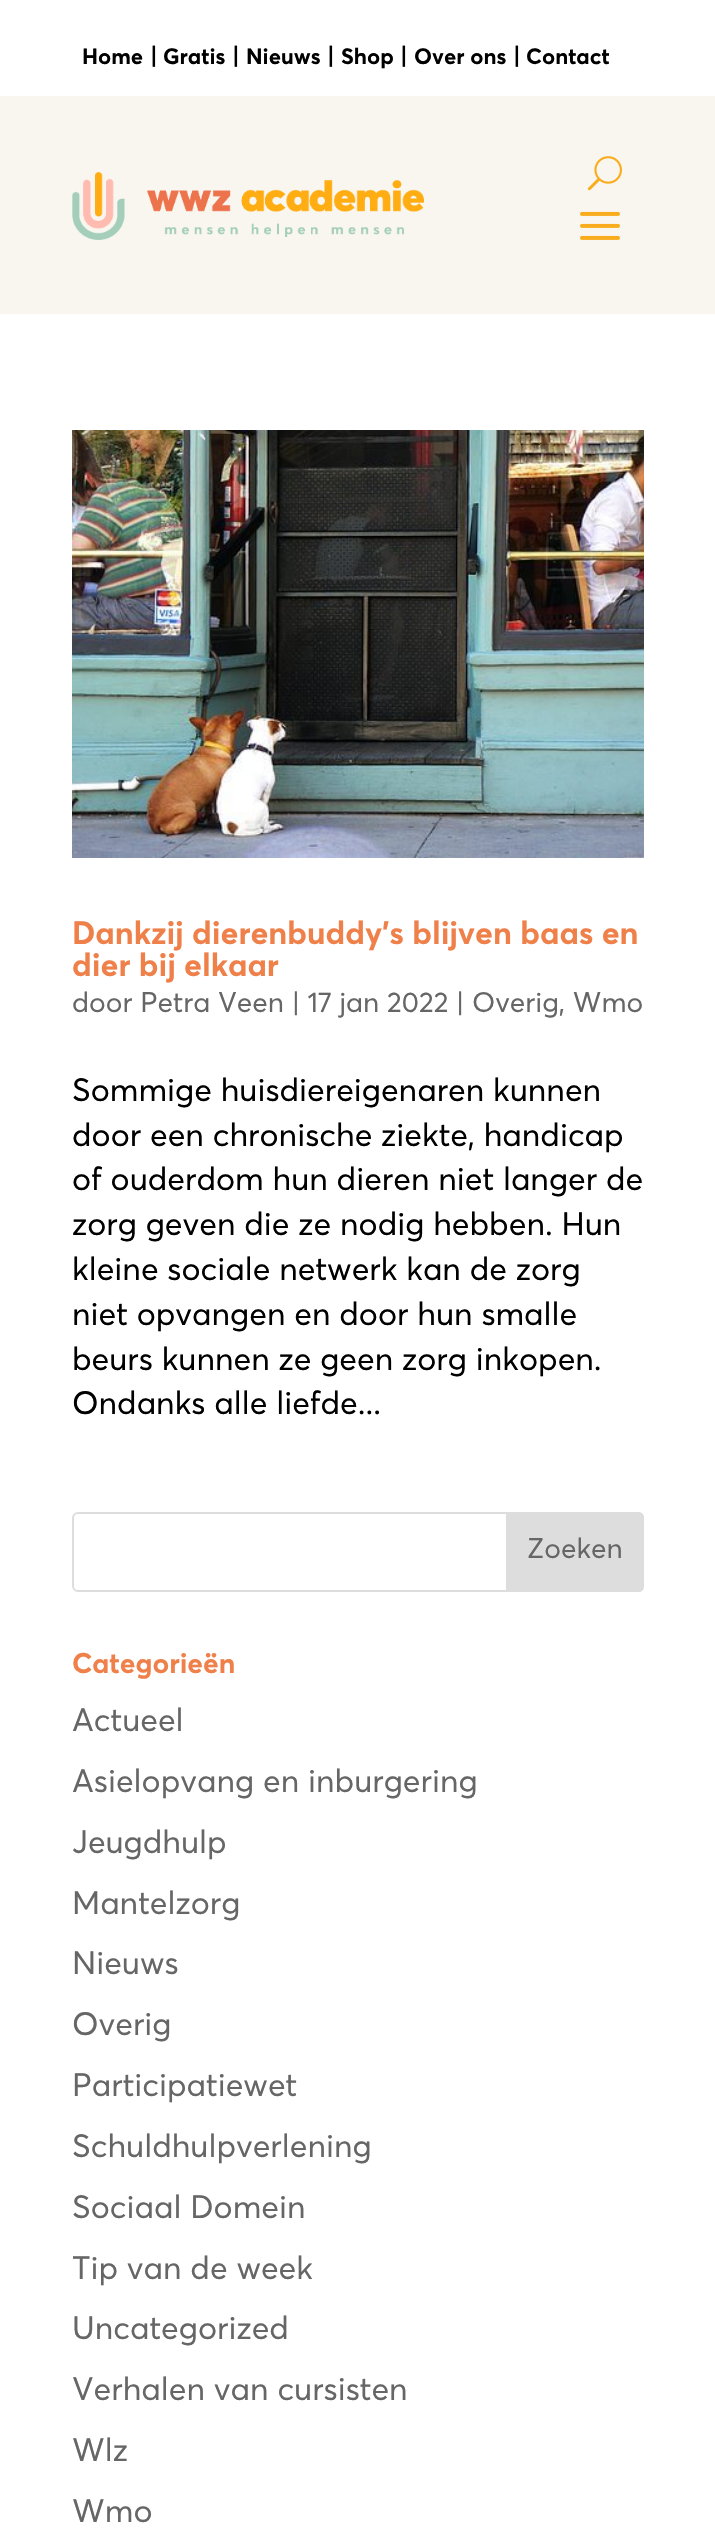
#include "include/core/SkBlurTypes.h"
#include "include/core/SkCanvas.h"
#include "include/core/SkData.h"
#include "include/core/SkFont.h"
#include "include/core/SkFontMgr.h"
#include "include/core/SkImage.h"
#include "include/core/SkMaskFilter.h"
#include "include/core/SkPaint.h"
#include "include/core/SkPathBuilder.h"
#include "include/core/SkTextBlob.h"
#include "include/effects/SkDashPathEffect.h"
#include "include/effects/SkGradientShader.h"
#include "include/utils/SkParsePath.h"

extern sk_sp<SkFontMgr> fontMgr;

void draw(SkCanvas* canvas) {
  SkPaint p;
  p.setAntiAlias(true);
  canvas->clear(SK_ColorWHITE);
  p.setColor(SkColorSetRGB(249, 246, 239));
  canvas->drawRect(SkRect::MakeLTRB(0, 96, 715, 314), p);
  canvas->drawImageRect(SkImages::DeferredFromEncodedData(SkData::MakeFromFileName("images/1.png")), SkRect::MakeLTRB(72, 172, 424, 240), SkSamplingOptions());
  canvas->drawImageRect(SkImages::DeferredFromEncodedData(SkData::MakeFromFileName("images/2.png")), SkRect::MakeLTRB(587, 156, 622, 191), SkSamplingOptions());
  canvas->drawImageRect(SkImages::DeferredFromEncodedData(SkData::MakeFromFileName("images/3.png")), SkRect::MakeLTRB(580, 211, 620, 240), SkSamplingOptions());
  canvas->drawImageRect(SkImages::DeferredFromEncodedData(SkData::MakeFromFileName("images/4.png")), SkRect::MakeLTRB(72, 430, 644, 858), SkSamplingOptions());
  p.setStyle(SkPaint::kStroke_Style);
  p.setStrokeWidth(2);
  p.setColor(SkColorSetRGB(221, 221, 221));
  canvas->drawRoundRect(SkRect::MakeLTRB(73, 1513, 643, 1591), 5, 5, p);
  p.setStyle(SkPaint::kFill_Style);
  canvas->drawPath(SkPathBuilder().moveTo(507, 1513).lineTo(638, 1513).cubicTo(641, 1513, 643, 1515, 643, 1518).lineTo(643, 1586).cubicTo(643, 1589, 641, 1591, 638, 1591).lineTo(507, 1591).close().detach(), p);
  p.setStyle(SkPaint::kStroke_Style);
  canvas->drawPath(SkPathBuilder().moveTo(507, 1513).lineTo(638, 1513).cubicTo(641, 1513, 643, 1515, 643, 1518).lineTo(643, 1586).cubicTo(643, 1589, 641, 1591, 638, 1591).lineTo(507, 1591).close().detach(), p);
  SkFont font1(fontMgr->matchFamilyStyle("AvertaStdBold", SkFontStyle::Bold()), 22);
  font1.setSubpixel(true);
  p.setStyle(SkPaint::kFill_Style);
  p.setColor(SK_ColorBLACK);
  canvas->drawString("Home", 82, 64, font1, p);
  SkFont font2(fontMgr->matchFamilyStyle("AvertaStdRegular", SkFontStyle::Bold()), 24);
  font2.setSubpixel(true);
  canvas->drawString("|", 150, 64, font2, p);
  canvas->drawString("Gratis", 163, 64, font1, p);
  canvas->drawString("|", 232, 64, font2, p);
  canvas->drawString("Nieuws", 246, 64, font1, p);
  canvas->drawString("|", 327, 64, font2, p);
  canvas->drawString("Shop", 341, 64, font1, p);
  canvas->drawString("|", 400, 64, font2, p);
  canvas->drawString("Over ons", 414, 64, font1, p);
  canvas->drawString("|", 513, 64, font2, p);
  canvas->drawString("Contact", 526, 64, font1, p);
  SkFont font3(fontMgr->matchFamilyStyle("AvertaStdBold", SkFontStyle::Bold()), 32);
  font3.setSubpixel(true);
  p.setColor(SkColorSetRGB(239, 128, 73));
  canvas->drawString("Dankzij dierenbuddy’s blijven baas en", 72, 944, font3, p);
  canvas->drawString("dier bij elkaar", 72, 976, font3, p);
  SkFont font4(fontMgr->matchFamilyStyle("AvertaStdRegular", SkFontStyle::Normal()), 28);
  font4.setSubpixel(true);
  p.setColor(SkColorSetRGB(102, 102, 102));
  canvas->drawString("door Petra Veen | 17 jan 2022 | Overig, Wmo", 72, 1012, font4, p);
  SkFont font5(fontMgr->matchFamilyStyle("AvertaStdRegular", SkFontStyle::Normal()), 32);
  font5.setSubpixel(true);
  p.setColor(SK_ColorBLACK);
  canvas->drawString("Sommige huisdiereigenaren kunnen", 72, 1101, font5, p);
  canvas->drawString("door een chronische ziekte, handicap", 72, 1146, font5, p);
  canvas->drawString("of ouderdom hun dieren niet langer de", 72, 1190, font5, p);
  canvas->drawString("zorg geven die ze nodig hebben. Hun", 72, 1235, font5, p);
  canvas->drawString("kleine sociale netwerk kan de zorg", 72, 1280, font5, p);
  canvas->drawString("niet opvangen en door hun smalle", 72, 1325, font5, p);
  canvas->drawString("beurs kunnen ze geen zorg inkopen.", 72, 1370, font5, p);
  canvas->drawString("Ondanks alle liefde...", 72, 1414, font5, p);
  p.setColor(SkColorSetRGB(102, 102, 102));
  canvas->drawString("Zoeken", 527, 1558, font4, p);
  SkFont font6(fontMgr->matchFamilyStyle("AvertaStdBold", SkFontStyle::Bold()), 28);
  font6.setSubpixel(true);
  p.setColor(SkColorSetRGB(239, 128, 73));
  canvas->drawString("Categorieën", 72, 1673, font6, p);
  p.setColor(SkColorSetRGB(102, 102, 102));
  canvas->drawString("Actueel", 72, 1731, font5, p);
  canvas->drawString("Asielopvang en inburgering", 72, 1792, font5, p);
  canvas->drawString("Jeugdhulp", 72, 1853, font5, p);
  canvas->drawString("Mantelzorg", 72, 1914, font5, p);
  canvas->drawString("Nieuws", 72, 1974, font5, p);
  canvas->drawString("Overig", 72, 2035, font5, p);
  canvas->drawString("Participatiewet", 72, 2096, font5, p);
  canvas->drawString("Schuldhulpverlening", 72, 2157, font5, p);
  canvas->drawString("Sociaal Domein", 72, 2218, font5, p);
  canvas->drawString("Tip van de week", 72, 2279, font5, p);
  canvas->drawString("Uncategorized", 72, 2339, font5, p);
  canvas->drawString("Verhalen van cursisten", 72, 2400, font5, p);
  canvas->drawString("Wlz", 72, 2461, font5, p);
  canvas->drawString("Wmo", 72, 2522, font5, p);
}
